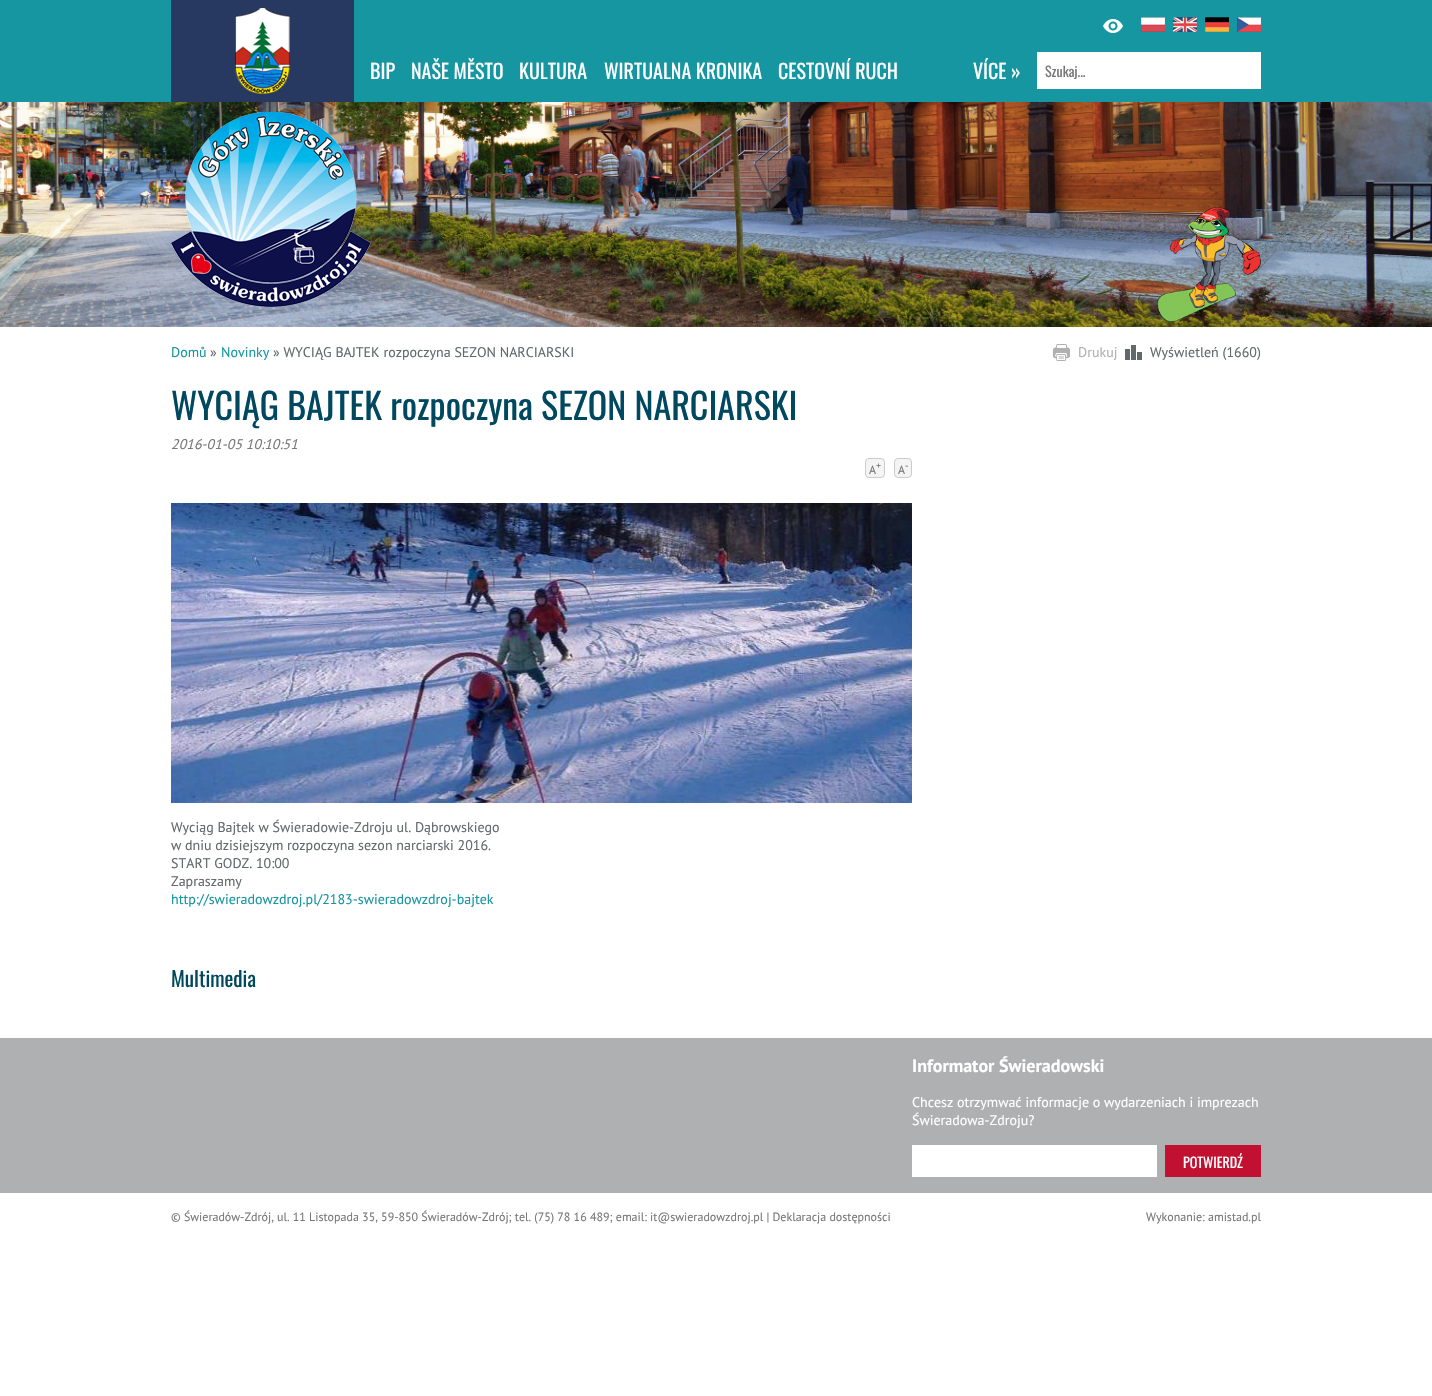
#include "include/core/SkBlurTypes.h"
#include "include/core/SkCanvas.h"
#include "include/core/SkData.h"
#include "include/core/SkFont.h"
#include "include/core/SkFontMgr.h"
#include "include/core/SkImage.h"
#include "include/core/SkMaskFilter.h"
#include "include/core/SkPaint.h"
#include "include/core/SkPathBuilder.h"
#include "include/core/SkTextBlob.h"
#include "include/effects/SkDashPathEffect.h"
#include "include/effects/SkGradientShader.h"
#include "include/utils/SkParsePath.h"

extern sk_sp<SkFontMgr> fontMgr;

void draw(SkCanvas* canvas) {
  SkPaint p;
  p.setAntiAlias(true);
  canvas->clear(SK_ColorWHITE);
  p.setColor(SkColorSetRGB(22, 150, 161));
  canvas->drawRect(SkRect::MakeLTRB(0, 0, 1432, 102), p);
  p.setColor(SkColorSetRGB(39, 57, 97));
  canvas->drawRect(SkRect::MakeLTRB(171, 0, 354, 102), p);
  canvas->drawImageRect(SkImages::DeferredFromEncodedData(SkData::MakeFromFileName("images/1.png")), SkRect::MakeLTRB(235, 8, 290, 94), SkSamplingOptions());
  canvas->drawImageRect(SkImages::DeferredFromEncodedData(SkData::MakeFromFileName("images/2.png")), SkRect::MakeLTRB(1103, 19, 1123, 33), SkSamplingOptions());
  canvas->drawImageRect(SkImages::DeferredFromEncodedData(SkData::MakeFromFileName("images/3.png")), SkRect::MakeLTRB(1141, 17, 1165, 32), SkSamplingOptions());
  canvas->drawImageRect(SkImages::DeferredFromEncodedData(SkData::MakeFromFileName("images/4.png")), SkRect::MakeLTRB(1173, 17, 1197, 32), SkSamplingOptions());
  canvas->drawImageRect(SkImages::DeferredFromEncodedData(SkData::MakeFromFileName("images/5.png")), SkRect::MakeLTRB(1205, 17, 1229, 32), SkSamplingOptions());
  canvas->drawImageRect(SkImages::DeferredFromEncodedData(SkData::MakeFromFileName("images/6.png")), SkRect::MakeLTRB(1237, 17, 1261, 32), SkSamplingOptions());
  p.setColor(SK_ColorWHITE);
  canvas->drawRect(SkRect::MakeLTRB(1037, 52, 1261, 89), p);
  canvas->drawImageRect(SkImages::DeferredFromEncodedData(SkData::MakeFromFileName("images/7.png")), SkRect::MakeLTRB(0, 102, 1432, 327), SkSamplingOptions());
  canvas->drawImageRect(SkImages::DeferredFromEncodedData(SkData::MakeFromFileName("images/8.png")), SkRect::MakeLTRB(171, 112, 371, 307), SkSamplingOptions());
  canvas->drawImageRect(SkImages::DeferredFromEncodedData(SkData::MakeFromFileName("images/9.png")), SkRect::MakeLTRB(1157, 207, 1261, 322), SkSamplingOptions());
  canvas->drawImageRect(SkImages::DeferredFromEncodedData(SkData::MakeFromFileName("images/10.png")), SkRect::MakeLTRB(1052, 344, 1070, 361), SkSamplingOptions());
  canvas->drawImageRect(SkImages::DeferredFromEncodedData(SkData::MakeFromFileName("images/11.png")), SkRect::MakeLTRB(1125, 345, 1142, 360), SkSamplingOptions());
  p.setColor(SkColorSetRGB(244, 244, 244));
  canvas->drawRoundRect(SkRect::MakeLTRB(865.5f, 458.5f, 884.5f, 477.5f), 3.5f, 3.5f, p);
  p.setStyle(SkPaint::kStroke_Style);
  p.setStrokeWidth(1);
  p.setColor(SkColorSetRGB(204, 204, 204));
  canvas->drawRoundRect(SkRect::MakeLTRB(865.5f, 458.5f, 884.5f, 477.5f), 3.5f, 3.5f, p);
  p.setStyle(SkPaint::kFill_Style);
  p.setColor(SkColorSetRGB(244, 244, 244));
  canvas->drawRoundRect(SkRect::MakeLTRB(894.5f, 458.5f, 911.5f, 477.5f), 3.5f, 3.5f, p);
  p.setStyle(SkPaint::kStroke_Style);
  p.setColor(SkColorSetRGB(204, 204, 204));
  canvas->drawRoundRect(SkRect::MakeLTRB(894.5f, 458.5f, 911.5f, 477.5f), 3.5f, 3.5f, p);
  canvas->drawImageRect(SkImages::DeferredFromEncodedData(SkData::MakeFromFileName("images/12.png")), SkRect::MakeLTRB(171, 503, 912, 803), SkSamplingOptions());
  p.setStyle(SkPaint::kFill_Style);
  p.setColor(SkColorSetRGB(175, 176, 178));
  canvas->drawRect(SkRect::MakeLTRB(0, 1038, 1432, 1193), p);
  p.setColor(SK_ColorWHITE);
  canvas->drawRect(SkRect::MakeLTRB(912, 1145, 1157, 1177), p);
  p.setColor(SkColorSetRGB(193, 16, 48));
  canvas->drawRect(SkRect::MakeLTRB(1165, 1145, 1261, 1177), p);
  SkFont font1(fontMgr->matchFamilyStyle("Oswald", SkFontStyle::Normal()), 20);
  font1.setSubpixel(true);
  p.setColor(SK_ColorWHITE);
  canvas->drawString("BIP", 370, 79, font1, p);
  canvas->drawString("NAŠE MĚSTO", 411, 79, font1, p);
  canvas->drawString("KULTURA", 519, 79, font1, p);
  canvas->drawString("WIRTUALNA KRONIKA", 604, 79, font1, p);
  canvas->drawString("CESTOVNÍ RUCH", 778, 79, font1, p);
  canvas->drawString("VÍCE »", 973, 79, font1, p);
  SkFont font2(fontMgr->matchFamilyStyle("Oswald", SkFontStyle::Normal()), 14);
  font2.setSubpixel(true);
  p.setColor(SkColorSetRGB(119, 119, 119));
  canvas->drawString("Szukaj...", 1045, 77, font2, p);
  SkFont font3(fontMgr->matchFamilyStyle("PT Sans", SkFontStyle::Normal()), 14);
  font3.setSubpixel(true);
  p.setColor(SkColorSetRGB(21, 150, 161));
  canvas->drawString("Domů", 171, 357, font3, p);
  p.setColor(SkColorSetRGB(99, 104, 106));
  canvas->drawString("»", 210, 357, font3, p);
  p.setColor(SkColorSetRGB(21, 150, 161));
  canvas->drawString("Novinky", 221, 357, font3, p);
  p.setColor(SkColorSetRGB(99, 104, 106));
  canvas->drawString("» WYCIĄG BAJTEK rozpoczyna SEZON NARCIARSKI", 273, 357, font3, p);
  p.setColor(SkColorSetRGB(176, 176, 176));
  canvas->drawString("Drukuj", 1078, 357, font3, p);
  p.setColor(SkColorSetRGB(99, 104, 106));
  canvas->drawString("Wyświetleń (1660)", 1150, 357, font3, p);
  SkFont font4(fontMgr->matchFamilyStyle("Oswald", SkFontStyle::Normal()), 36);
  font4.setSubpixel(true);
  p.setColor(SkColorSetRGB(0, 72, 95));
  canvas->drawString("WYCIĄG BAJTEK rozpoczyna SEZON NARCIARSKI", 171, 420, font4, p);
  SkFont font5(fontMgr->matchFamilyStyle("PT Sans", SkFontStyle::Italic()), 14);
  font5.setSubpixel(true);
  p.setColor(SkColorSetRGB(119, 119, 119));
  canvas->drawString("2016-01-05 10:10:51", 171, 449, font5, p);
  SkFont font6(fontMgr->matchFamilyStyle("PT Sans", SkFontStyle::Normal()), 12);
  font6.setSubpixel(true);
  canvas->drawString("A", 869, 474, font6, p);
  SkFont font7(fontMgr->matchFamilyStyle("PT Sans", SkFontStyle::Normal()), 10);
  font7.setSubpixel(true);
  canvas->drawString("+", 876, 469, font7, p);
  canvas->drawString("A", 898, 474, font6, p);
  canvas->drawString("-", 905, 469, font7, p);
  p.setColor(SkColorSetRGB(99, 104, 106));
  canvas->drawString("Wyciąg Bajtek w Świeradowie-Zdroju ul. Dąbrowskiego", 171, 832, font3, p);
  canvas->drawString("w dniu dzisiejszym rozpoczyna sezon narciarski 2016.", 171, 850, font3, p);
  canvas->drawString("START GODZ. 10:00", 171, 868, font3, p);
  canvas->drawString("Zapraszamy", 171, 886, font3, p);
  p.setColor(SkColorSetRGB(21, 150, 161));
  canvas->drawString("http://swieradowzdroj.pl/2183-swieradowzdroj-bajtek", 171, 904, font3, p);
  SkFont font8(fontMgr->matchFamilyStyle("Oswald", SkFontStyle::Normal()), 21);
  font8.setSubpixel(true);
  p.setColor(SkColorSetRGB(0, 72, 95));
  canvas->drawString("Multimedia", 171, 987, font8, p);
  SkFont font9(fontMgr->matchFamilyStyle("PT Sans", SkFontStyle::Bold()), 18);
  font9.setSubpixel(true);
  p.setColor(SK_ColorWHITE);
  canvas->drawString("Informator Świeradowski", 912, 1072, font9, p);
  canvas->drawString("Chcesz otrzymwać informacje o wydarzeniach i imprezach", 912, 1107, font3, p);
  canvas->drawString("Świeradowa-Zdroju?", 912, 1125, font3, p);
  canvas->drawString("POTWIERDŹ", 1183, 1168, font2, p);
  p.setColor(SkColorSetRGB(119, 119, 119));
  canvas->drawString("© Świeradów-Zdrój, ul. 11 Listopada 35, 59-850 Świeradów-Zdrój; tel. (75) 78 16 489; email: it@swieradowzdroj.pl | Deklaracja dostępności", 171, 1221, font6, p);
  canvas->drawString("Wykonanie: amistad.pl", 1146, 1221, font6, p);
}
